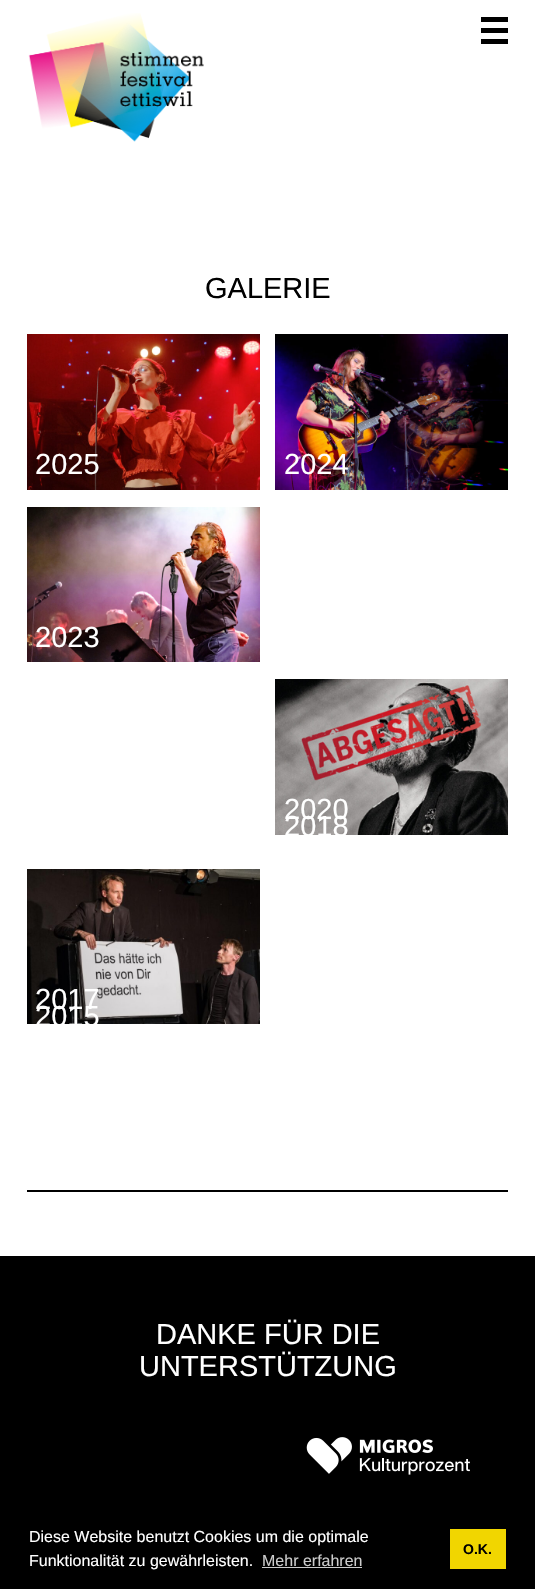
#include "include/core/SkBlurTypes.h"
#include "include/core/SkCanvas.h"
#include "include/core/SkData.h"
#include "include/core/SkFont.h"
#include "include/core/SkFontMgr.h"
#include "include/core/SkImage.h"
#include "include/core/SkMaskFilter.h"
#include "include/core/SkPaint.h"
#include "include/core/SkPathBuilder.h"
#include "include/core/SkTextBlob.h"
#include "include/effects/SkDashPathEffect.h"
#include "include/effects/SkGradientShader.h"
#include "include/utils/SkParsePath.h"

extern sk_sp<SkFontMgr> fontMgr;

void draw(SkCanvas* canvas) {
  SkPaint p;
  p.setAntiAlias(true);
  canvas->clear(SK_ColorWHITE);
  canvas->drawImageRect(SkImages::DeferredFromEncodedData(SkData::MakeFromFileName("images/1.png")), SkRect::MakeLTRB(28, 13, 204, 142), SkSamplingOptions());
  p.setColor(SK_ColorBLACK);
  canvas->drawRect(SkRect::MakeLTRB(481, 17, 508, 22), p);
  canvas->drawRect(SkRect::MakeLTRB(481, 28, 508, 33), p);
  canvas->drawRect(SkRect::MakeLTRB(481, 39, 508, 44), p);
  canvas->drawRect(SkRect::MakeLTRB(27, 1190, 508, 1192), p);
  canvas->drawImageRect(SkImages::DeferredFromEncodedData(SkData::MakeFromFileName("images/2.png")), SkRect::MakeLTRB(27, 334, 260, 490), SkSamplingOptions());
  canvas->drawImageRect(SkImages::DeferredFromEncodedData(SkData::MakeFromFileName("images/3.png")), SkRect::MakeLTRB(275, 334, 508, 490), SkSamplingOptions());
  canvas->drawImageRect(SkImages::DeferredFromEncodedData(SkData::MakeFromFileName("images/4.png")), SkRect::MakeLTRB(27, 507, 260, 662), SkSamplingOptions());
  canvas->drawImageRect(SkImages::DeferredFromEncodedData(SkData::MakeFromFileName("images/5.png")), SkRect::MakeLTRB(275, 679, 508, 835), SkSamplingOptions());
  canvas->drawImageRect(SkImages::DeferredFromEncodedData(SkData::MakeFromFileName("images/6.png")), SkRect::MakeLTRB(27, 869, 260, 1024), SkSamplingOptions());
  canvas->drawRect(SkRect::MakeLTRB(0, 1256, 535, 1589), p);
  canvas->drawImageRect(SkImages::DeferredFromEncodedData(SkData::MakeFromFileName("images/7.png")), SkRect::MakeLTRB(306, 1437, 470, 1475), SkSamplingOptions());
  p.setColor(SkColorSetRGB(204, 204, 204));
  canvas->drawRect(SkRect::MakeLTRB(262, 1567, 362, 1568), p);
  p.setColor(SkColorSetRGB(241, 214, 0));
  canvas->drawRect(SkRect::MakeLTRB(450, 1529, 506, 1569), p);
  SkFont font1(fontMgr->matchFamilyStyle("Liberation Sans", SkFontStyle::Normal()), 29);
  font1.setSubpixel(true);
  p.setColor(SK_ColorBLACK);
  canvas->drawString("GALERIE", 205, 298, font1, p);
  p.setColor(SK_ColorWHITE);
  canvas->drawString("2025", 35, 474, font1, p);
  canvas->drawString("2024", 284, 474, font1, p);
  canvas->drawString("2023", 35, 647, font1, p);
  canvas->drawString("2020", 284, 819, font1, p);
  canvas->drawString("2018", 284, 836, font1, p);
  canvas->drawString("2017", 35, 1009, font1, p);
  canvas->drawString("2015", 35, 1026, font1, p);
  canvas->drawString("DANKE FÜR DIE", 156, 1344, font1, p);
  canvas->drawString("UNTERSTÜTZUNG", 139, 1376, font1, p);
  SkFont font2(fontMgr->matchFamilyStyle("Liberation Sans", SkFontStyle::Normal()), 16);
  font2.setSubpixel(true);
  canvas->drawString("Diese Website benutzt Cookies um die optimale", 29, 1542, font2, p);
  canvas->drawString("Funktionalität zu gewährleisten.", 29, 1566, font2, p);
  p.setColor(SkColorSetRGB(204, 204, 204));
  canvas->drawString("Mehr erfahren", 262, 1566, font2, p);
  SkFont font3(fontMgr->matchFamilyStyle("Liberation Sans", SkFontStyle::Bold()), 14);
  font3.setSubpixel(true);
  p.setColor(SK_ColorBLACK);
  canvas->drawString("O.K.", 463, 1554, font3, p);
}
